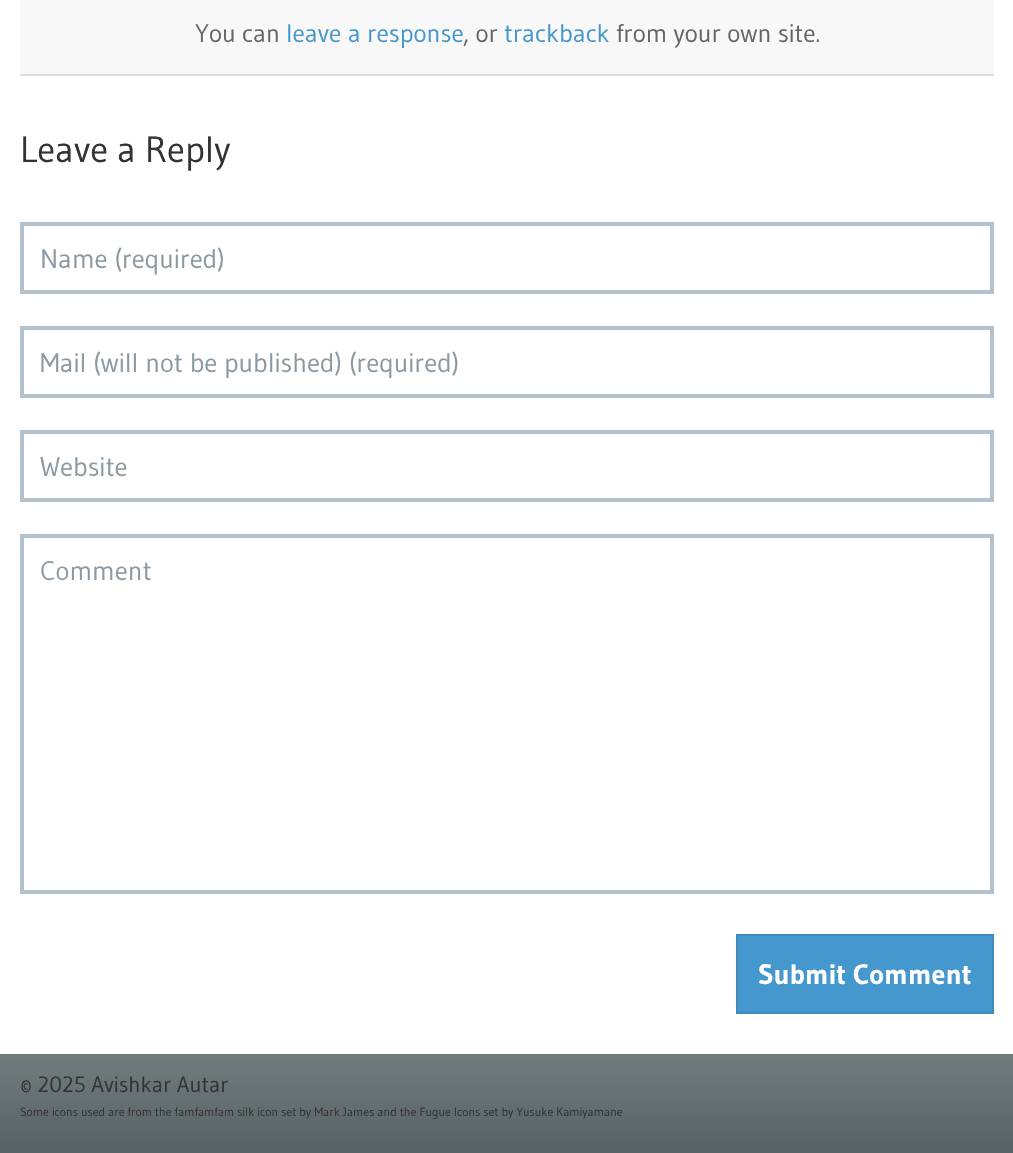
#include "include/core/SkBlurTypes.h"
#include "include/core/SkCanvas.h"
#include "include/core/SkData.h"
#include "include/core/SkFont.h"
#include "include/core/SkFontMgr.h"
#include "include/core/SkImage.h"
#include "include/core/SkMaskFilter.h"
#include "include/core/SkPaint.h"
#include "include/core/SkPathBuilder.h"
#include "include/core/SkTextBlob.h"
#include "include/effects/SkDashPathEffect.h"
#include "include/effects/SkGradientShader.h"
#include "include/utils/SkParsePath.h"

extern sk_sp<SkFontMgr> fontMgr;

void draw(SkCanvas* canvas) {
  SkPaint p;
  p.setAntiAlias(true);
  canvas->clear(SK_ColorWHITE);
  p.setColor(SkColorSetRGB(248, 248, 248));
  canvas->drawRect(SkRect::MakeLTRB(20, 0, 994, 74), p);
  p.setColor(SkColorSetRGB(221, 221, 221));
  canvas->drawRect(SkRect::MakeLTRB(20, 74, 994, 76), p);
  p.setStyle(SkPaint::kStroke_Style);
  p.setStrokeWidth(4);
  p.setColor(SkColorSetRGB(179, 194, 204));
  canvas->drawRect(SkRect::MakeLTRB(22, 224, 992, 292), p);
  canvas->drawRect(SkRect::MakeLTRB(22, 328, 992, 396), p);
  canvas->drawRect(SkRect::MakeLTRB(22, 432, 992, 500), p);
  canvas->drawRect(SkRect::MakeLTRB(22, 536, 992, 892), p);
  p.setStyle(SkPaint::kFill_Style);
  p.setColor(SkColorSetRGB(68, 152, 205));
  canvas->drawRect(SkRect::MakeLTRB(737, 935, 993, 1013), p);
  p.setStyle(SkPaint::kStroke_Style);
  p.setStrokeWidth(2);
  p.setColor(SkColorSetRGB(65, 138, 184));
  canvas->drawRect(SkRect::MakeLTRB(737, 935, 993, 1013), p);
  canvas->drawImageRect(SkImages::DeferredFromEncodedData(SkData::MakeFromFileName("images/1.png")), SkRect::MakeLTRB(0, 1054, 1013, 1153), SkSamplingOptions());
  SkFont font1(fontMgr->matchFamilyStyle("Gudea", SkFontStyle::Normal()), 25.25f);
  font1.setSubpixel(true);
  p.setStyle(SkPaint::kFill_Style);
  p.setColor(SkColorSetRGB(102, 102, 102));
  canvas->drawString("You can", 195, 42, font1, p);
  p.setColor(SkColorSetRGB(68, 152, 205));
  canvas->drawString("leave a response", 286, 42, font1, p);
  p.setColor(SkColorSetRGB(102, 102, 102));
  canvas->drawString(", or", 463, 42, font1, p);
  p.setColor(SkColorSetRGB(68, 152, 205));
  canvas->drawString("trackback", 504, 42, font1, p);
  p.setColor(SkColorSetRGB(102, 102, 102));
  canvas->drawString("from your own site.", 616, 42, font1, p);
  SkFont font2(fontMgr->matchFamilyStyle("Gudea", SkFontStyle::Normal()), 36.5f);
  font2.setSubpixel(true);
  p.setColor(SkColorSetRGB(51, 51, 51));
  canvas->drawString("Leave a Reply", 20, 162, font2, p);
  SkFont font3(fontMgr->matchFamilyStyle("Gudea", SkFontStyle::Normal()), 26.7f);
  font3.setSubpixel(true);
  p.setColor(SkColorSetRGB(140, 153, 162));
  canvas->drawString("Name (required)", 40, 268, font3, p);
  canvas->save();
  canvas->clipRect(SkRect::MakeLTRB(40, 346, 974, 378));
  canvas->drawString("Mail (will not be published) (required)", 40, 372, font3, p);
  canvas->restore();
  canvas->drawString("Website", 40, 476, font3, p);
  canvas->drawString("Comment", 40, 580, font3, p);
  SkFont font4(fontMgr->matchFamilyStyle("Gudea", SkFontStyle::Bold()), 28);
  font4.setSubpixel(true);
  p.setColor(SK_ColorWHITE);
  canvas->drawString("Submit Comment", 758, 984, font4, p);
  SkFont font5(fontMgr->matchFamilyStyle("Gudea", SkFontStyle::Normal()), 22);
  font5.setSubpixel(true);
  p.setColor(SkColorSetRGB(51, 51, 51));
  canvas->drawString("© 2025 Avishkar Autar", 20, 1092, font5, p);
  SkFont font6(fontMgr->matchFamilyStyle("Gudea", SkFontStyle::Normal()), 12);
  font6.setSubpixel(true);
  canvas->drawString("Some icons used are from the famfamfam silk icon set by Mark James and the Fugue Icons set by Yusuke Kamiyamane", 20, 1116, font6, p);
}
